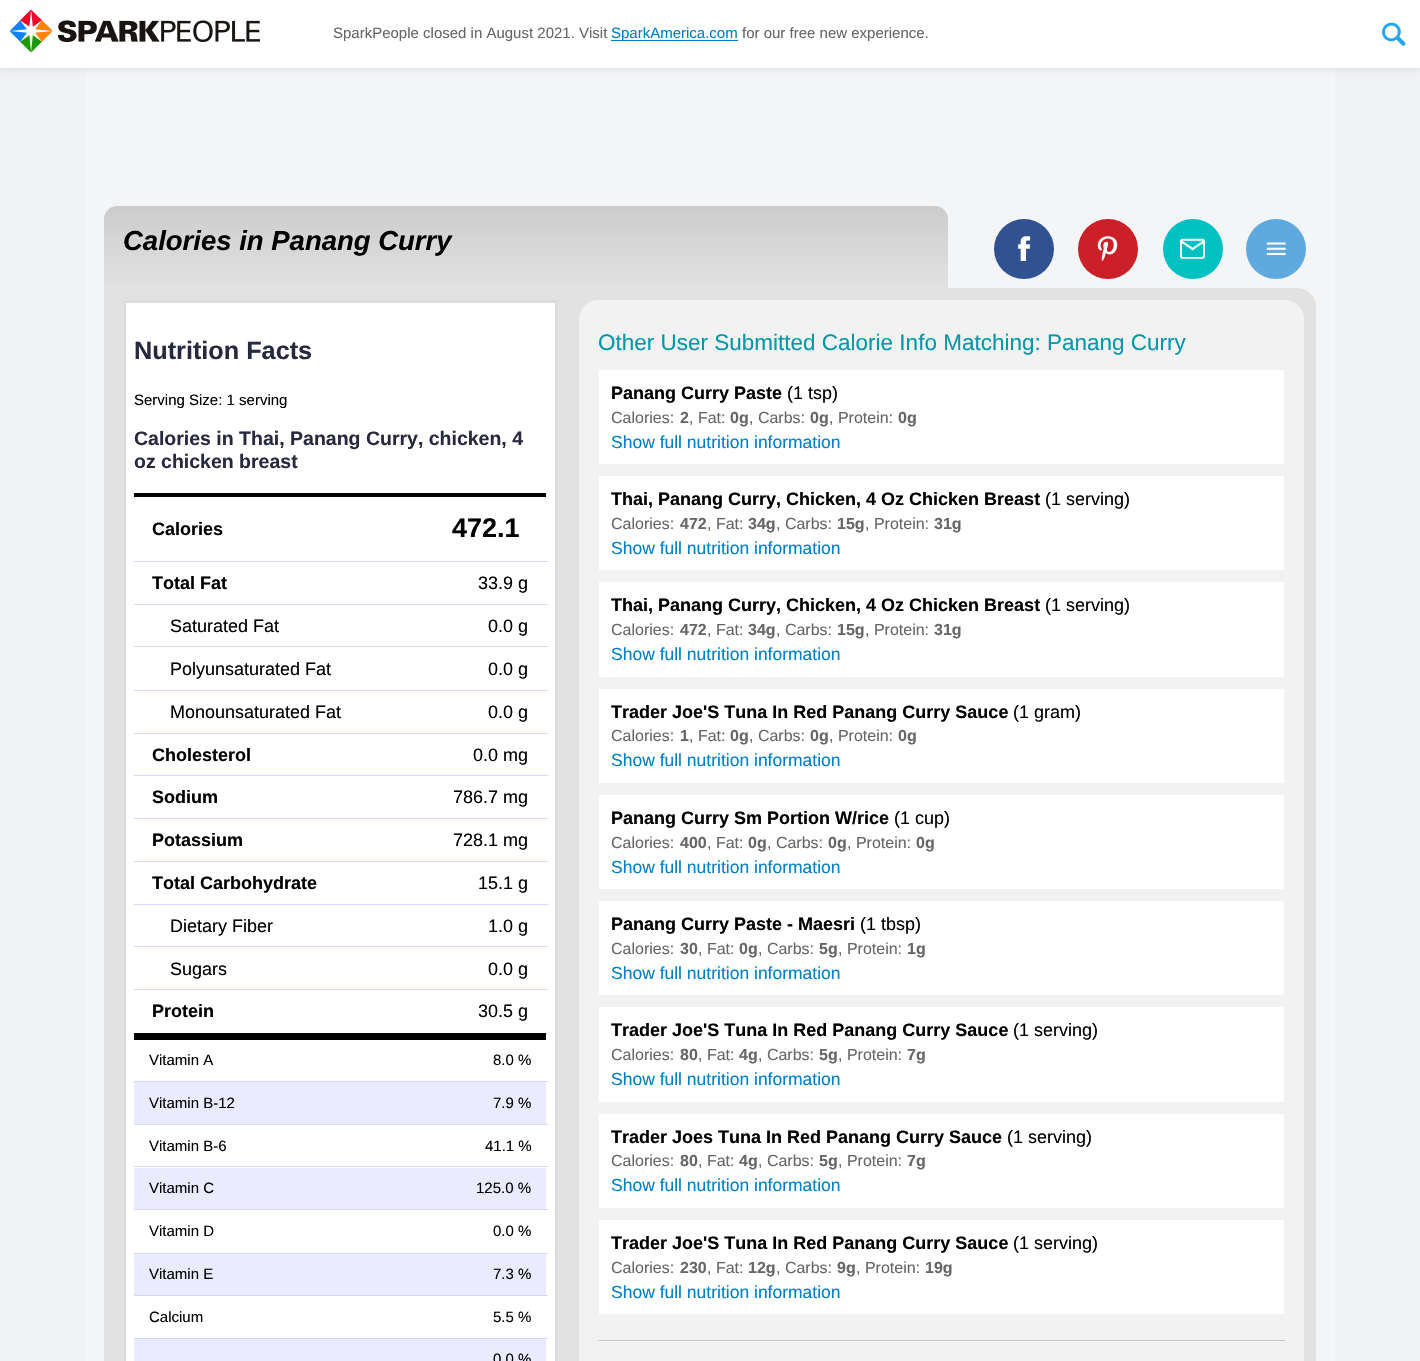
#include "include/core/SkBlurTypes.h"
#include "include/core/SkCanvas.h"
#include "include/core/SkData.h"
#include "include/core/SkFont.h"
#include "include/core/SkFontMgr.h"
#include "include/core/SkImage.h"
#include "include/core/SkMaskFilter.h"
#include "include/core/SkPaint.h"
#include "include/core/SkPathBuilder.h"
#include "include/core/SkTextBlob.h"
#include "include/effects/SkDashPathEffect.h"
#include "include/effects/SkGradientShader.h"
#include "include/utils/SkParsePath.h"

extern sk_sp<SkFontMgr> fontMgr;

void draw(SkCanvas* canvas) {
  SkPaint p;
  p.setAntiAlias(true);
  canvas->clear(SkColorSetRGB(241, 242, 243));
  p.setColor(SkColorSetRGB(244, 245, 247));
  canvas->drawRect(SkRect::MakeLTRB(85, 69, 1335, 1361), p);
  p.setColor(SkColorSetARGB(26, 0, 0, 0));
  p.setMaskFilter(SkMaskFilter::MakeBlur(kNormal_SkBlurStyle, 3));
  canvas->drawRect(SkRect::MakeLTRB(0, 0, 1420, 69), p);
  p.setMaskFilter(nullptr);
  p.setColor(SK_ColorWHITE);
  canvas->drawRect(SkRect::MakeLTRB(0, 0, 1420, 68), p);
  p.setColor(SkColorSetRGB(229, 229, 229));
  canvas->drawRect(SkRect::MakeLTRB(0, 68, 1420, 69), p);
  canvas->drawImageRect(SkImages::DeferredFromEncodedData(SkData::MakeFromFileName("images/1.png")), SkRect::MakeLTRB(10, 10, 260, 52), SkSamplingOptions());
  p.setColor(SkColorSetRGB(0, 127, 196));
  canvas->drawRect(SkRect::MakeLTRB(611, 40, 738, 41), p);
  canvas->drawImageRect(SkImages::DeferredFromEncodedData(SkData::MakeFromFileName("images/2.png")), SkRect::MakeLTRB(1382, 22, 1406, 46), SkSamplingOptions());
  {
    const SkColor colors[] = {SkColorSetRGB(204, 204, 204), SkColorSetRGB(226, 226, 226)};
    const float stops[] = {0, 1};
    const SkPoint ends[] = {{526, 206}, {526, 288}};
    p.setShader(SkGradientShader::MakeLinear(ends, colors, stops, 2, SkTileMode::kClamp));
    p.setAlpha(255);
  }
  canvas->drawPath(SkPathBuilder().moveTo(117, 206).lineTo(935, 206).cubicTo(942, 206, 948, 212, 948, 219).lineTo(948, 288).lineTo(104, 288).lineTo(104, 219).cubicTo(104, 212, 110, 206, 117, 206).close().detach(), p);
  p.setShader(nullptr);
  p.setColor(SkColorSetRGB(50, 81, 145));
  canvas->drawCircle(1024, 249, 30, p);
  canvas->drawImageRect(SkImages::DeferredFromEncodedData(SkData::MakeFromFileName("images/3.png")), SkRect::MakeLTRB(1018, 236, 1031, 261), SkSamplingOptions());
  p.setColor(SkColorSetRGB(203, 32, 39));
  canvas->drawCircle(1108, 249, 30, p);
  canvas->drawImageRect(SkImages::DeferredFromEncodedData(SkData::MakeFromFileName("images/4.png")), SkRect::MakeLTRB(1097, 236, 1118, 261), SkSamplingOptions());
  p.setColor(SkColorSetRGB(0, 193, 193));
  canvas->drawCircle(1193, 249, 30, p);
  canvas->drawImageRect(SkImages::DeferredFromEncodedData(SkData::MakeFromFileName("images/5.png")), SkRect::MakeLTRB(1180, 238, 1205, 259), SkSamplingOptions());
  p.setColor(SkColorSetRGB(94, 169, 221));
  canvas->drawCircle(1276, 249, 30, p);
  canvas->drawImageRect(SkImages::DeferredFromEncodedData(SkData::MakeFromFileName("images/6.png")), SkRect::MakeLTRB(1266, 242, 1286, 255), SkSamplingOptions());
  p.setColor(SkColorSetRGB(226, 226, 226));
  canvas->drawPath(SkPathBuilder().moveTo(104, 288).lineTo(1297, 288).cubicTo(1307.5f, 288, 1316, 296.5f, 1316, 307).lineTo(1316, 1361).cubicTo(1316, 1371.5f, 1307.5f, 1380, 1297, 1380).lineTo(123, 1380).cubicTo(112.5f, 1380, 104, 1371.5f, 104, 1361).close().detach(), p);
  p.setColor(SK_ColorWHITE);
  canvas->drawRect(SkRect::MakeLTRB(124.5f, 301.5f, 556.5f, 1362.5f), p);
  p.setStyle(SkPaint::kStroke_Style);
  p.setStrokeWidth(3);
  p.setColor(SkColorSetRGB(221, 221, 221));
  canvas->drawRect(SkRect::MakeLTRB(124.5f, 301.5f, 556.5f, 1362.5f), p);
  p.setStyle(SkPaint::kFill_Style);
  p.setColor(SK_ColorBLACK);
  canvas->drawRect(SkRect::MakeLTRB(134, 493, 546, 497), p);
  canvas->drawRect(SkRect::MakeLTRB(134, 1033, 546, 1040), p);
  p.setColor(SkColorSetRGB(215, 215, 249));
  canvas->drawRect(SkRect::MakeLTRB(134, 561, 548, 562), p);
  canvas->drawRect(SkRect::MakeLTRB(134, 604, 548, 605), p);
  canvas->drawRect(SkRect::MakeLTRB(134, 646, 548, 647), p);
  canvas->drawRect(SkRect::MakeLTRB(134, 690, 548, 691), p);
  canvas->drawRect(SkRect::MakeLTRB(134, 733, 548, 734), p);
  canvas->drawRect(SkRect::MakeLTRB(134, 775, 548, 776), p);
  canvas->drawRect(SkRect::MakeLTRB(134, 818, 548, 819), p);
  canvas->drawRect(SkRect::MakeLTRB(134, 861, 548, 862), p);
  canvas->drawRect(SkRect::MakeLTRB(134, 904, 548, 905), p);
  canvas->drawRect(SkRect::MakeLTRB(134, 946, 548, 947), p);
  canvas->drawRect(SkRect::MakeLTRB(134, 989, 548, 990), p);
  canvas->drawRect(SkRect::MakeLTRB(546, 1034, 548, 1035), p);
  canvas->drawRect(SkRect::MakeLTRB(134, 1081, 548, 1082), p);
  p.setColor(SkColorSetRGB(235, 235, 255));
  canvas->drawRect(SkRect::MakeLTRB(134, 1082, 546, 1124), p);
  p.setColor(SkColorSetRGB(215, 215, 249));
  canvas->drawRect(SkRect::MakeLTRB(134, 1124, 548, 1125), p);
  canvas->drawRect(SkRect::MakeLTRB(134, 1166, 548, 1167), p);
  p.setColor(SkColorSetRGB(235, 235, 255));
  canvas->drawRect(SkRect::MakeLTRB(134, 1168, 546, 1209), p);
  p.setColor(SkColorSetRGB(215, 215, 249));
  canvas->drawRect(SkRect::MakeLTRB(134, 1209, 548, 1210), p);
  canvas->drawRect(SkRect::MakeLTRB(134, 1253, 548, 1254), p);
  p.setColor(SkColorSetRGB(235, 235, 255));
  canvas->drawRect(SkRect::MakeLTRB(134, 1254, 546, 1295), p);
  p.setColor(SkColorSetRGB(215, 215, 249));
  canvas->drawRect(SkRect::MakeLTRB(134, 1295, 548, 1296), p);
  canvas->drawRect(SkRect::MakeLTRB(134, 1338, 548, 1339), p);
  p.setColor(SkColorSetRGB(235, 235, 255));
  canvas->drawRect(SkRect::MakeLTRB(134, 1339, 546, 1361), p);
  p.setColor(SkColorSetRGB(242, 242, 242));
  canvas->drawRoundRect(SkRect::MakeLTRB(579, 300, 1304, 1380), 19, 19, p);
  p.setColor(SK_ColorWHITE);
  canvas->drawRect(SkRect::MakeLTRB(599, 370, 1284, 464), p);
  canvas->drawRect(SkRect::MakeLTRB(599, 476, 1284, 570), p);
  canvas->drawRect(SkRect::MakeLTRB(599, 582, 1284, 677), p);
  canvas->drawRect(SkRect::MakeLTRB(599, 689, 1284, 783), p);
  canvas->drawRect(SkRect::MakeLTRB(599, 795, 1284, 889), p);
  canvas->drawRect(SkRect::MakeLTRB(599, 901, 1284, 995), p);
  canvas->drawRect(SkRect::MakeLTRB(599, 1007, 1284, 1102), p);
  canvas->drawRect(SkRect::MakeLTRB(599, 1114, 1284, 1208), p);
  canvas->drawRect(SkRect::MakeLTRB(599, 1220, 1284, 1314), p);
  p.setColor(SkColorSetRGB(204, 204, 204));
  canvas->drawRect(SkRect::MakeLTRB(598, 1340, 1285, 1341), p);
  SkFont font1(fontMgr->matchFamilyStyle("Liberation Sans", SkFontStyle::Normal()), 15);
  font1.setSubpixel(true);
  p.setColor(SkColorSetRGB(102, 102, 102));
  canvas->drawString("SparkPeople closed in August 2021. Visit", 333, 38, font1, p);
  p.setColor(SkColorSetRGB(0, 127, 196));
  canvas->drawString("SparkAmerica.com", 611, 38, font1, p);
  p.setColor(SkColorSetRGB(102, 102, 102));
  canvas->drawString("for our free new experience.", 742, 38, font1, p);
  SkFont font2(fontMgr->matchFamilyStyle("Liberation Sans", SkFontStyle::BoldItalic()), 27.5f);
  font2.setSubpixel(true);
  p.setColor(SK_ColorBLACK);
  canvas->drawString("Calories in Panang Curry", 123, 250, font2, p);
  SkFont font3(fontMgr->matchFamilyStyle("Liberation Sans", SkFontStyle::Bold()), 25.25f);
  font3.setSubpixel(true);
  p.setColor(SkColorSetRGB(40, 40, 62));
  canvas->drawString("Nutrition Facts", 134, 359, font3, p);
  p.setColor(SK_ColorBLACK);
  canvas->drawString("Serving Size: 1 serving", 134, 405, font1, p);
  SkFont font4(fontMgr->matchFamilyStyle("Liberation Sans", SkFontStyle::Bold()), 19.5f);
  font4.setSubpixel(true);
  p.setColor(SkColorSetRGB(40, 40, 62));
  canvas->drawString("Calories in Thai, Panang Curry, chicken, 4", 134, 445, font4, p);
  canvas->drawString("oz chicken breast", 134, 468, font4, p);
  SkFont font5(fontMgr->matchFamilyStyle("Liberation Sans", SkFontStyle::Bold()), 18);
  font5.setSubpixel(true);
  p.setColor(SK_ColorBLACK);
  canvas->drawString("Calories", 152, 535, font5, p);
  SkFont font6(fontMgr->matchFamilyStyle("Liberation Sans", SkFontStyle::Bold()), 27);
  font6.setSubpixel(true);
  canvas->drawString("472.1", 452, 537, font6, p);
  canvas->drawString("Total Fat", 152, 589, font5, p);
  SkFont font7(fontMgr->matchFamilyStyle("Liberation Sans", SkFontStyle::Normal()), 18);
  font7.setSubpixel(true);
  canvas->drawString("33.9 g", 478, 589, font7, p);
  canvas->drawString("Saturated Fat", 170, 632, font7, p);
  canvas->drawString("0.0 g", 488, 632, font7, p);
  canvas->drawString("Polyunsaturated Fat", 170, 675, font7, p);
  canvas->drawString("0.0 g", 488, 675, font7, p);
  canvas->drawString("Monounsaturated Fat", 170, 718, font7, p);
  canvas->drawString("0.0 g", 488, 718, font7, p);
  canvas->drawString("Cholesterol", 152, 761, font5, p);
  canvas->drawString("0.0 mg", 473, 761, font7, p);
  canvas->drawString("Sodium", 152, 803, font5, p);
  canvas->drawString("786.7 mg", 453, 803, font7, p);
  canvas->drawString("Potassium", 152, 846, font5, p);
  canvas->drawString("728.1 mg", 453, 846, font7, p);
  canvas->drawString("Total Carbohydrate", 152, 889, font5, p);
  canvas->drawString("15.1 g", 478, 889, font7, p);
  canvas->drawString("Dietary Fiber", 170, 932, font7, p);
  canvas->drawString("1.0 g", 488, 932, font7, p);
  canvas->drawString("Sugars", 170, 975, font7, p);
  canvas->drawString("0.0 g", 488, 975, font7, p);
  canvas->drawString("Protein", 152, 1017, font5, p);
  canvas->drawString("30.5 g", 478, 1017, font7, p);
  canvas->drawString("Vitamin A", 149, 1065, font1, p);
  canvas->drawString("8.0 %", 493, 1065, font1, p);
  canvas->drawString("Vitamin B-12", 149, 1108, font1, p);
  canvas->drawString("7.9 %", 493, 1108, font1, p);
  canvas->drawString("Vitamin B-6", 149, 1151, font1, p);
  canvas->drawString("41.1 %", 485, 1151, font1, p);
  canvas->drawString("Vitamin C", 149, 1193, font1, p);
  canvas->drawString("125.0 %", 476, 1193, font1, p);
  canvas->drawString("Vitamin D", 149, 1236, font1, p);
  canvas->drawString("0.0 %", 493, 1236, font1, p);
  canvas->drawString("Vitamin E", 149, 1279, font1, p);
  canvas->drawString("7.3 %", 493, 1279, font1, p);
  canvas->drawString("Calcium", 149, 1322, font1, p);
  canvas->drawString("5.5 %", 493, 1322, font1, p);
  canvas->drawString("0.0 %", 493, 1364, font1, p);
  SkFont font8(fontMgr->matchFamilyStyle("Liberation Sans", SkFontStyle::Normal()), 22.5f);
  font8.setSubpixel(true);
  p.setColor(SkColorSetRGB(0, 151, 167));
  canvas->drawString("Other User Submitted Calorie Info Matching: Panang Curry", 598, 350, font8, p);
  p.setColor(SK_ColorBLACK);
  canvas->drawString("Panang Curry Paste", 611, 399, font5, p);
  canvas->drawString("(1 tsp)", 787, 399, font7, p);
  SkFont font9(fontMgr->matchFamilyStyle("Liberation Sans", SkFontStyle::Normal()), 16);
  font9.setSubpixel(true);
  p.setColor(SkColorSetRGB(102, 102, 102));
  canvas->drawString("Calories:", 611, 423, font9, p);
  SkFont font10(fontMgr->matchFamilyStyle("Liberation Sans", SkFontStyle::Bold()), 16);
  font10.setSubpixel(true);
  canvas->drawString("2", 680, 423, font10, p);
  canvas->drawString(", Fat:", 689, 423, font9, p);
  canvas->drawString("0g", 730, 423, font10, p);
  canvas->drawString(", Carbs:", 749, 423, font9, p);
  canvas->drawString("0g", 810, 423, font10, p);
  canvas->drawString(", Protein:", 829, 423, font9, p);
  canvas->drawString("0g", 898, 423, font10, p);
  SkFont font11(fontMgr->matchFamilyStyle("Liberation Sans", SkFontStyle::Normal()), 17.5f);
  font11.setSubpixel(true);
  p.setColor(SkColorSetRGB(0, 127, 196));
  canvas->drawString("Show full nutrition information", 611, 448, font11, p);
  p.setColor(SK_ColorBLACK);
  canvas->drawString("Thai, Panang Curry, Chicken, 4 Oz Chicken Breast", 611, 505, font5, p);
  canvas->drawString("(1 serving)", 1045, 505, font7, p);
  p.setColor(SkColorSetRGB(102, 102, 102));
  canvas->drawString("Calories:", 611, 529, font9, p);
  canvas->drawString("472", 680, 529, font10, p);
  canvas->drawString(", Fat:", 707, 529, font9, p);
  canvas->drawString("34g", 748, 529, font10, p);
  canvas->drawString(", Carbs:", 776, 529, font9, p);
  canvas->drawString("15g", 837, 529, font10, p);
  canvas->drawString(", Protein:", 865, 529, font9, p);
  canvas->drawString("31g", 934, 529, font10, p);
  p.setColor(SkColorSetRGB(0, 127, 196));
  canvas->drawString("Show full nutrition information", 611, 554, font11, p);
  p.setColor(SK_ColorBLACK);
  canvas->drawString("Thai, Panang Curry, Chicken, 4 Oz Chicken Breast", 611, 611, font5, p);
  canvas->drawString("(1 serving)", 1045, 611, font7, p);
  p.setColor(SkColorSetRGB(102, 102, 102));
  canvas->drawString("Calories:", 611, 635, font9, p);
  canvas->drawString("472", 680, 635, font10, p);
  canvas->drawString(", Fat:", 707, 635, font9, p);
  canvas->drawString("34g", 748, 635, font10, p);
  canvas->drawString(", Carbs:", 776, 635, font9, p);
  canvas->drawString("15g", 837, 635, font10, p);
  canvas->drawString(", Protein:", 865, 635, font9, p);
  canvas->drawString("31g", 934, 635, font10, p);
  p.setColor(SkColorSetRGB(0, 127, 196));
  canvas->drawString("Show full nutrition information", 611, 660, font11, p);
  p.setColor(SK_ColorBLACK);
  canvas->drawString("Trader Joe'S Tuna In Red Panang Curry Sauce", 611, 718, font5, p);
  canvas->drawString("(1 gram)", 1013, 718, font7, p);
  p.setColor(SkColorSetRGB(102, 102, 102));
  canvas->drawString("Calories:", 611, 741, font9, p);
  canvas->drawString("1", 680, 741, font10, p);
  canvas->drawString(", Fat:", 689, 741, font9, p);
  canvas->drawString("0g", 730, 741, font10, p);
  canvas->drawString(", Carbs:", 749, 741, font9, p);
  canvas->drawString("0g", 810, 741, font10, p);
  canvas->drawString(", Protein:", 829, 741, font9, p);
  canvas->drawString("0g", 898, 741, font10, p);
  p.setColor(SkColorSetRGB(0, 127, 196));
  canvas->drawString("Show full nutrition information", 611, 766, font11, p);
  p.setColor(SK_ColorBLACK);
  canvas->drawString("Panang Curry Sm Portion W/rice", 611, 824, font5, p);
  canvas->drawString("(1 cup)", 894, 824, font7, p);
  p.setColor(SkColorSetRGB(102, 102, 102));
  canvas->drawString("Calories:", 611, 848, font9, p);
  canvas->drawString("400", 680, 848, font10, p);
  canvas->drawString(", Fat:", 707, 848, font9, p);
  canvas->drawString("0g", 748, 848, font10, p);
  canvas->drawString(", Carbs:", 767, 848, font9, p);
  canvas->drawString("0g", 828, 848, font10, p);
  canvas->drawString(", Protein:", 847, 848, font9, p);
  canvas->drawString("0g", 916, 848, font10, p);
  p.setColor(SkColorSetRGB(0, 127, 196));
  canvas->drawString("Show full nutrition information", 611, 873, font11, p);
  p.setColor(SK_ColorBLACK);
  canvas->drawString("Panang Curry Paste - Maesri", 611, 930, font5, p);
  canvas->drawString("(1 tbsp)", 860, 930, font7, p);
  p.setColor(SkColorSetRGB(102, 102, 102));
  canvas->drawString("Calories:", 611, 954, font9, p);
  canvas->drawString("30", 680, 954, font10, p);
  canvas->drawString(", Fat:", 698, 954, font9, p);
  canvas->drawString("0g", 739, 954, font10, p);
  canvas->drawString(", Carbs:", 758, 954, font9, p);
  canvas->drawString("5g", 819, 954, font10, p);
  canvas->drawString(", Protein:", 838, 954, font9, p);
  canvas->drawString("1g", 907, 954, font10, p);
  p.setColor(SkColorSetRGB(0, 127, 196));
  canvas->drawString("Show full nutrition information", 611, 979, font11, p);
  p.setColor(SK_ColorBLACK);
  canvas->drawString("Trader Joe'S Tuna In Red Panang Curry Sauce", 611, 1036, font5, p);
  canvas->drawString("(1 serving)", 1013, 1036, font7, p);
  p.setColor(SkColorSetRGB(102, 102, 102));
  canvas->drawString("Calories:", 611, 1060, font9, p);
  canvas->drawString("80", 680, 1060, font10, p);
  canvas->drawString(", Fat:", 698, 1060, font9, p);
  canvas->drawString("4g", 739, 1060, font10, p);
  canvas->drawString(", Carbs:", 758, 1060, font9, p);
  canvas->drawString("5g", 819, 1060, font10, p);
  canvas->drawString(", Protein:", 838, 1060, font9, p);
  canvas->drawString("7g", 907, 1060, font10, p);
  p.setColor(SkColorSetRGB(0, 127, 196));
  canvas->drawString("Show full nutrition information", 611, 1085, font11, p);
  p.setColor(SK_ColorBLACK);
  canvas->drawString("Trader Joes Tuna In Red Panang Curry Sauce", 611, 1143, font5, p);
  canvas->drawString("(1 serving)", 1007, 1143, font7, p);
  p.setColor(SkColorSetRGB(102, 102, 102));
  canvas->drawString("Calories:", 611, 1166, font9, p);
  canvas->drawString("80", 680, 1166, font10, p);
  canvas->drawString(", Fat:", 698, 1166, font9, p);
  canvas->drawString("4g", 739, 1166, font10, p);
  canvas->drawString(", Carbs:", 758, 1166, font9, p);
  canvas->drawString("5g", 819, 1166, font10, p);
  canvas->drawString(", Protein:", 838, 1166, font9, p);
  canvas->drawString("7g", 907, 1166, font10, p);
  p.setColor(SkColorSetRGB(0, 127, 196));
  canvas->drawString("Show full nutrition information", 611, 1191, font11, p);
  p.setColor(SK_ColorBLACK);
  canvas->drawString("Trader Joe'S Tuna In Red Panang Curry Sauce", 611, 1249, font5, p);
  canvas->drawString("(1 serving)", 1013, 1249, font7, p);
  p.setColor(SkColorSetRGB(102, 102, 102));
  canvas->drawString("Calories:", 611, 1273, font9, p);
  canvas->drawString("230", 680, 1273, font10, p);
  canvas->drawString(", Fat:", 707, 1273, font9, p);
  canvas->drawString("12g", 748, 1273, font10, p);
  canvas->drawString(", Carbs:", 776, 1273, font9, p);
  canvas->drawString("9g", 837, 1273, font10, p);
  canvas->drawString(", Protein:", 856, 1273, font9, p);
  canvas->drawString("19g", 925, 1273, font10, p);
  p.setColor(SkColorSetRGB(0, 127, 196));
  canvas->drawString("Show full nutrition information", 611, 1298, font11, p);
}
